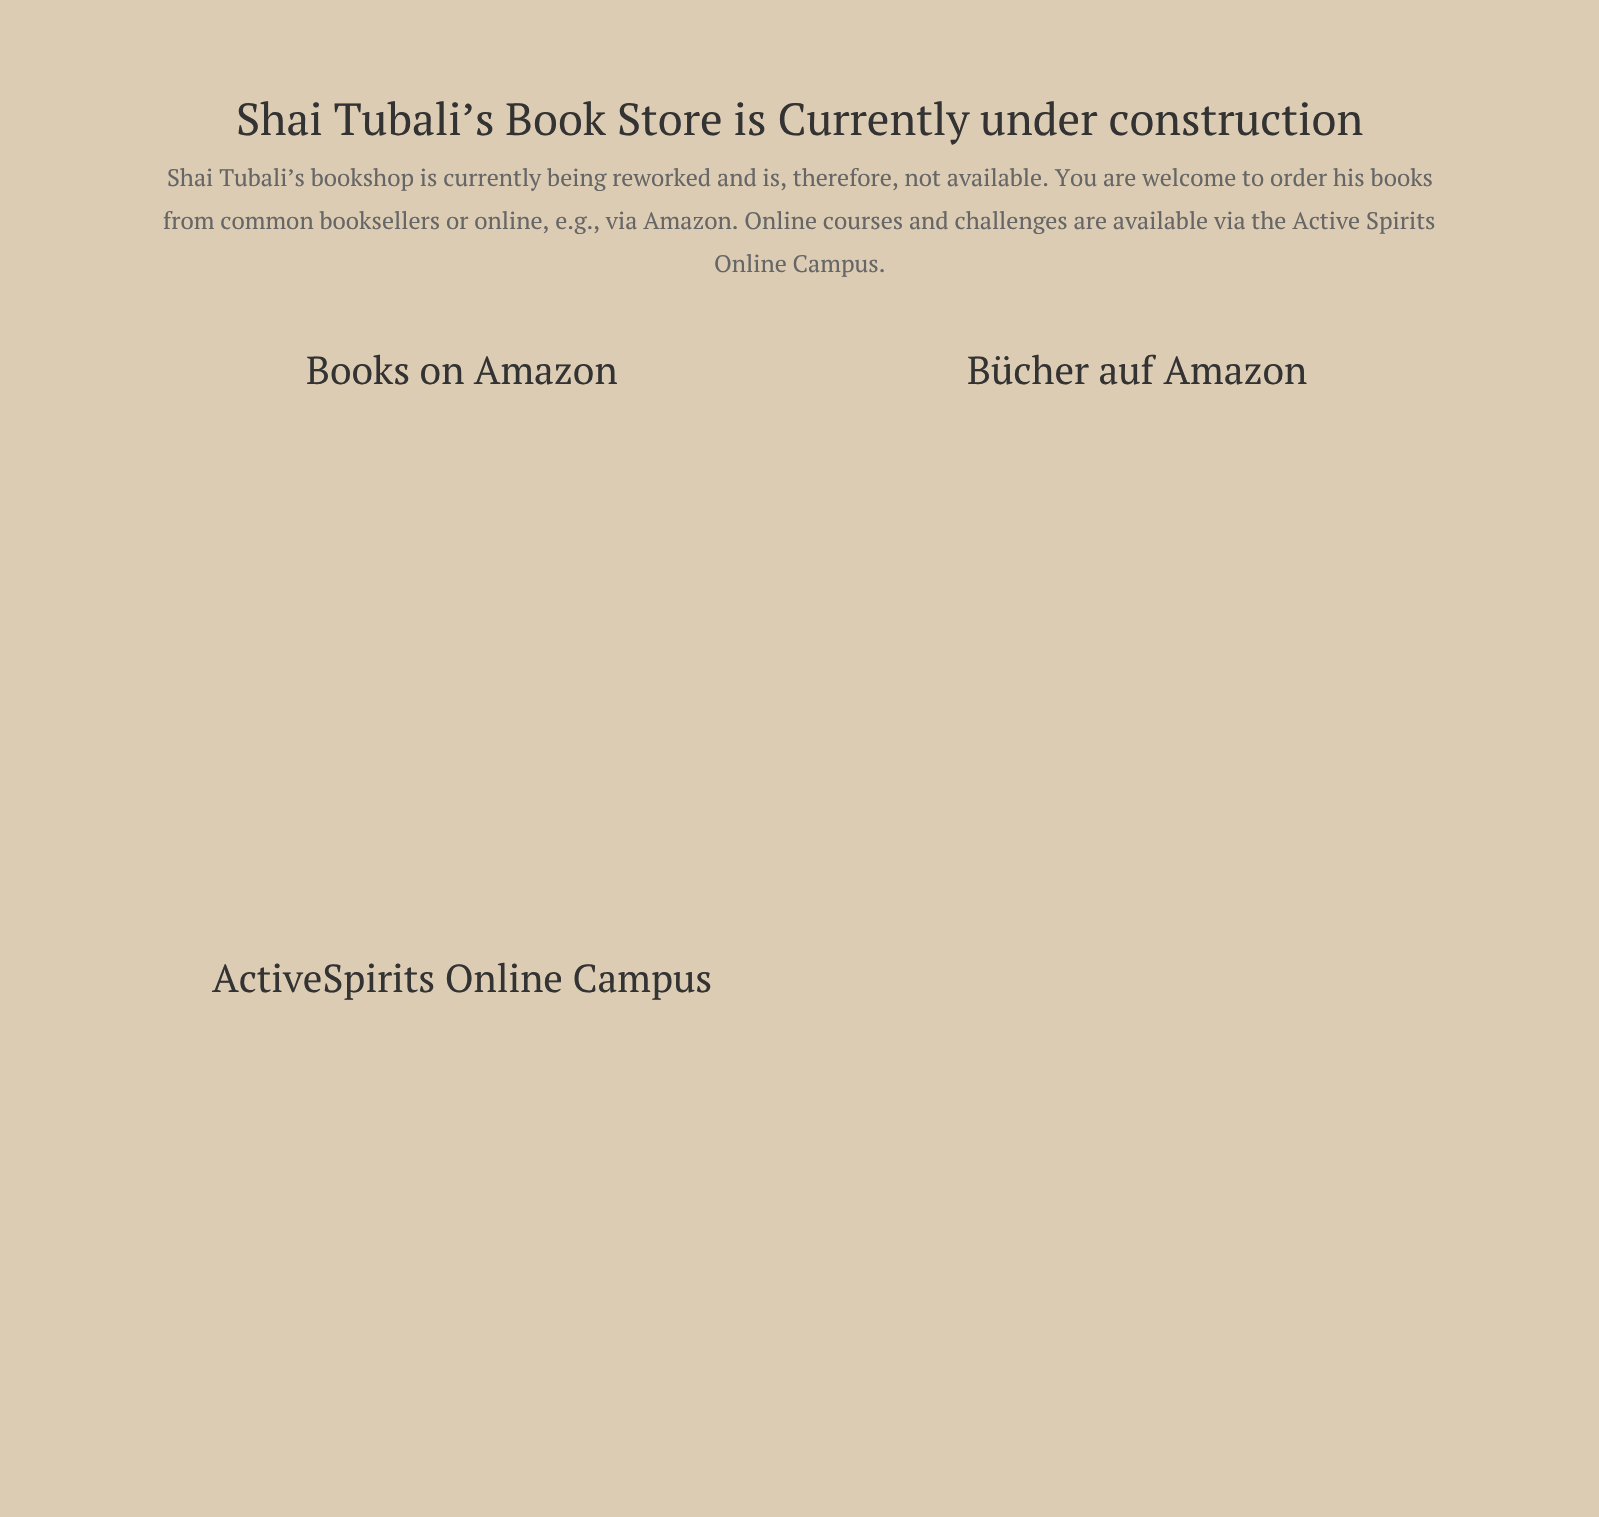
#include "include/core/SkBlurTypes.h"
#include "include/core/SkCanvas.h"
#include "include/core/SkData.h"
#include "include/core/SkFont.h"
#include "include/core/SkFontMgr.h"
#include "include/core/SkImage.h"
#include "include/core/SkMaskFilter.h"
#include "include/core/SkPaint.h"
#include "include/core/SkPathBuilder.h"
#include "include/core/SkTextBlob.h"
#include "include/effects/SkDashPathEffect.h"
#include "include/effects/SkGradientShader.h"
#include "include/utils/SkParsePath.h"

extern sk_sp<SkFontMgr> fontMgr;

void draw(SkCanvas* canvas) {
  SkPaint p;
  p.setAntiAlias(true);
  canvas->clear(SkColorSetRGB(220, 204, 179));
  SkFont font1(fontMgr->matchFamilyStyle("PT Serif", SkFontStyle::Normal()), 45);
  font1.setSubpixel(true);
  p.setColor(SkColorSetRGB(51, 51, 51));
  canvas->drawString("Shai Tubali’s Book Store is Currently under construction", 236, 135, font1, p);
  SkFont font2(fontMgr->matchFamilyStyle("PT Serif", SkFontStyle::Normal()), 24);
  font2.setSubpixel(true);
  p.setColor(SkColorSetRGB(102, 102, 102));
  canvas->drawString("Shai Tubali’s bookshop is currently being reworked and is, therefore, not available. You are welcome to order his books", 167, 186, font2, p);
  canvas->drawString("from common booksellers or online, e.g., via Amazon. Online courses and challenges are available via the Active Spirits", 163, 229, font2, p);
  canvas->drawString("Online Campus.", 714, 272, font2, p);
  SkFont font3(fontMgr->matchFamilyStyle("PT Serif", SkFontStyle::Normal()), 39);
  font3.setSubpixel(true);
  p.setColor(SkColorSetRGB(51, 51, 51));
  canvas->drawString("Books on Amazon", 306, 384, font3, p);
  canvas->drawString("ActiveSpirits Online Campus", 212, 992, font3, p);
  canvas->drawString("Bücher auf Amazon", 967, 384, font3, p);
}
